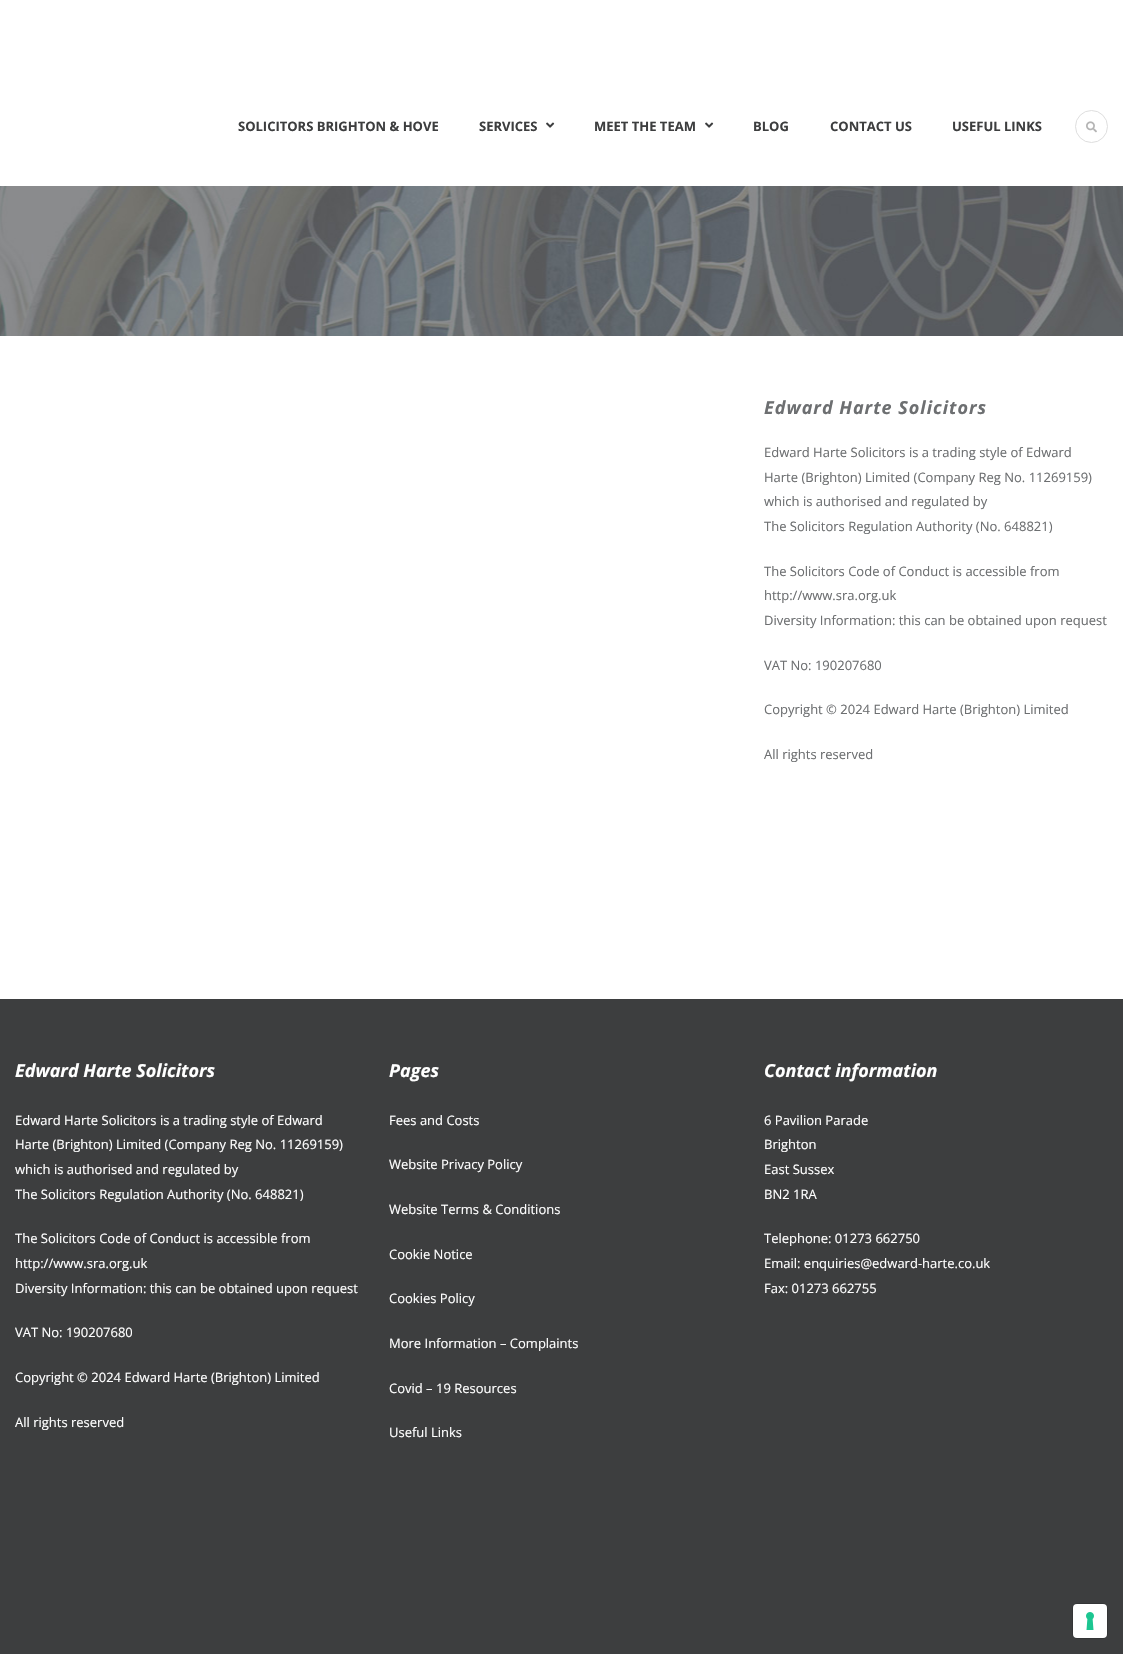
#include "include/core/SkBlurTypes.h"
#include "include/core/SkCanvas.h"
#include "include/core/SkData.h"
#include "include/core/SkFont.h"
#include "include/core/SkFontMgr.h"
#include "include/core/SkImage.h"
#include "include/core/SkMaskFilter.h"
#include "include/core/SkPaint.h"
#include "include/core/SkPathBuilder.h"
#include "include/core/SkTextBlob.h"
#include "include/effects/SkDashPathEffect.h"
#include "include/effects/SkGradientShader.h"
#include "include/utils/SkParsePath.h"

extern sk_sp<SkFontMgr> fontMgr;

void draw(SkCanvas* canvas) {
  SkPaint p;
  p.setAntiAlias(true);
  auto spacedText = [&](const char* s, float x, float y, const SkFont& font, const SkPaint& ink, float letter, float word) {
    std::vector<SkGlyphID> glyphs(font.countText(s, strlen(s), SkTextEncoding::kUTF8));
    std::vector<float> xs(glyphs.size());
    font.textToGlyphs(s, strlen(s), SkTextEncoding::kUTF8, glyphs);
    font.getXPos(glyphs, xs, x);
    float extra = 0;
    for (size_t i = 0; i < glyphs.size(); i++) {
      xs[i] += extra;
      extra += letter + word * (glyphs[i] == font.unicharToGlyph(' '));
    }
    canvas->drawTextBlob(SkTextBlob::MakeFromPosHGlyphs(glyphs, xs, y, font), 0, 0, ink);
  };
  canvas->clear(SK_ColorWHITE);
  canvas->drawImageRect(SkImages::DeferredFromEncodedData(SkData::MakeFromFileName("images/1.png")), SkRect::MakeLTRB(546, 122, 555, 128), SkSamplingOptions());
  canvas->drawImageRect(SkImages::DeferredFromEncodedData(SkData::MakeFromFileName("images/1.png")), SkRect::MakeLTRB(705, 122, 714, 128), SkSamplingOptions());
  p.setStyle(SkPaint::kStroke_Style);
  p.setStrokeWidth(1);
  p.setColor(SkColorSetRGB(222, 222, 222));
  canvas->drawCircle(1091.5f, 126.5f, 16, p);
  canvas->drawImageRect(SkImages::DeferredFromEncodedData(SkData::MakeFromFileName("images/2.png")), SkRect::MakeLTRB(1086, 121, 1097, 133), SkSamplingOptions());
  canvas->drawImageRect(SkImages::DeferredFromEncodedData(SkData::MakeFromFileName("images/3.png")), SkRect::MakeLTRB(0, 186, 1123, 336), SkSamplingOptions());
  p.setStyle(SkPaint::kFill_Style);
  p.setColor(SkColorSetRGB(61, 62, 63));
  canvas->drawRect(SkRect::MakeLTRB(0, 999, 1123, 1654), p);
  p.setStyle(SkPaint::kStroke_Style);
  p.setColor(SkColorSetRGB(52, 53, 54));
  canvas->drawRoundRect(SkRect::MakeLTRB(1072.5f, 1603.5f, 1107.5f, 1638.5f), 4.5f, 4.5f, p);
  p.setStyle(SkPaint::kFill_Style);
  p.setColor(SK_ColorWHITE);
  canvas->drawRoundRect(SkRect::MakeLTRB(1073, 1604, 1107, 1638), 4, 4, p);
  canvas->drawImageRect(SkImages::DeferredFromEncodedData(SkData::MakeFromFileName("images/4.png")), SkRect::MakeLTRB(1086, 1612, 1094, 1630), SkSamplingOptions());
  SkFont font1(fontMgr->matchFamilyStyle("Open Sans", SkFontStyle::Bold()), 13);
  font1.setSubpixel(true);
  p.setColor(SkColorSetRGB(61, 62, 63));
  canvas->drawString("SOLICITORS BRIGHTON & HOVE", 238, 131, font1, p);
  canvas->drawString("SERVICES", 479, 131, font1, p);
  canvas->drawString("MEET THE TEAM", 594, 131, font1, p);
  canvas->drawString("BLOG", 753, 131, font1, p);
  canvas->drawString("CONTACT US", 830, 131, font1, p);
  canvas->drawString("USEFUL LINKS", 952, 131, font1, p);
  SkFont font2(fontMgr->matchFamilyStyle("Open Sans", SkFontStyle::BoldItalic()), 18);
  font2.setSubpixel(true);
  p.setColor(SkColorSetRGB(109, 111, 113));
  spacedText("Edward Harte Solicitors", 764, 414, font2, p, 1, 0);
  SkFont font3(fontMgr->matchFamilyStyle("Open Sans", SkFontStyle::Normal()), 13);
  font3.setSubpixel(true);
  canvas->drawString("Edward Harte Solicitors is a trading style of Edward", 764, 457, font3, p);
  canvas->drawString("Harte (Brighton) Limited (Company Reg No. 11269159)", 764, 482, font3, p);
  canvas->drawString("which is authorised and regulated by", 764, 506, font3, p);
  canvas->drawString("The Solicitors Regulation Authority (No. 648821)", 764, 531, font3, p);
  canvas->drawString("The Solicitors Code of Conduct is accessible from", 764, 576, font3, p);
  canvas->drawString("http://www.sra.org.uk", 764, 600, font3, p);
  canvas->drawString("Diversity Information: this can be obtained upon request", 764, 625, font3, p);
  canvas->drawString("VAT No: 190207680", 764, 670, font3, p);
  canvas->drawString("Copyright © 2024 Edward Harte (Brighton) Limited", 764, 714, font3, p);
  canvas->drawString("All rights reserved", 764, 759, font3, p);
  p.setColor(SK_ColorWHITE);
  canvas->drawString("Edward Harte Solicitors", 15, 1077, font2, p);
  canvas->drawString("Edward Harte Solicitors is a trading style of Edward", 15, 1125, font3, p);
  canvas->drawString("Harte (Brighton) Limited (Company Reg No. 11269159)", 15, 1149, font3, p);
  canvas->drawString("which is authorised and regulated by", 15, 1174, font3, p);
  canvas->drawString("The Solicitors Regulation Authority (No. 648821)", 15, 1199, font3, p);
  canvas->drawString("The Solicitors Code of Conduct is accessible from", 15, 1243, font3, p);
  canvas->drawString("http://www.sra.org.uk", 15, 1268, font3, p);
  canvas->drawString("Diversity Information: this can be obtained upon request", 15, 1293, font3, p);
  canvas->drawString("VAT No: 190207680", 15, 1337, font3, p);
  canvas->drawString("Copyright © 2024 Edward Harte (Brighton) Limited", 15, 1382, font3, p);
  canvas->drawString("All rights reserved", 15, 1427, font3, p);
  canvas->drawString("Pages", 389, 1077, font2, p);
  canvas->drawString("Fees and Costs", 389, 1125, font3, p);
  canvas->drawString("Website Privacy Policy", 389, 1169, font3, p);
  canvas->drawString("Website Terms & Conditions", 389, 1214, font3, p);
  canvas->drawString("Cookie Notice", 389, 1259, font3, p);
  canvas->drawString("Cookies Policy", 389, 1303, font3, p);
  canvas->drawString("More Information – Complaints", 389, 1348, font3, p);
  canvas->drawString("Covid – 19 Resources", 389, 1393, font3, p);
  canvas->drawString("Useful Links", 389, 1437, font3, p);
  canvas->drawString("Contact information", 764, 1077, font2, p);
  canvas->drawString("6 Pavilion Parade", 764, 1125, font3, p);
  canvas->drawString("Brighton", 764, 1149, font3, p);
  canvas->drawString("East Sussex", 764, 1174, font3, p);
  canvas->drawString("BN2 1RA", 764, 1199, font3, p);
  canvas->drawString("Telephone: 01273 662750", 764, 1243, font3, p);
  canvas->drawString("Email: enquiries@edward-harte.co.uk", 764, 1268, font3, p);
  canvas->drawString("Fax: 01273 662755", 764, 1293, font3, p);
}
